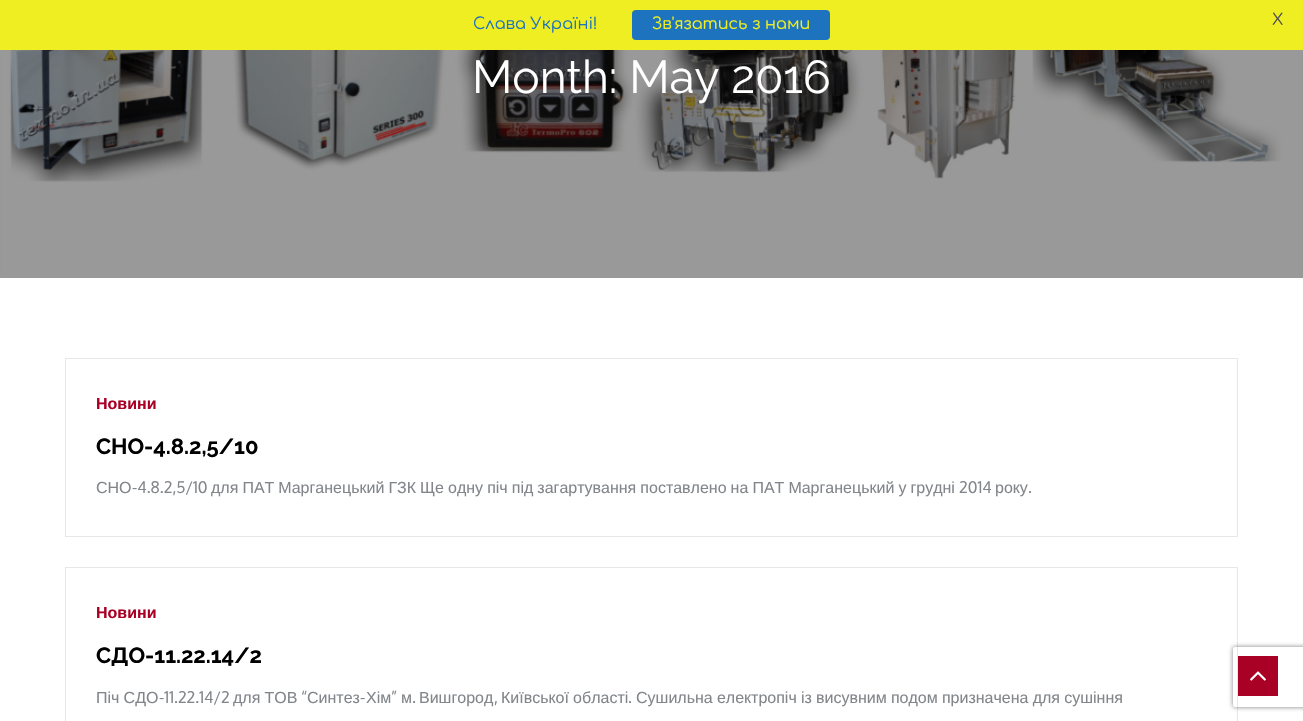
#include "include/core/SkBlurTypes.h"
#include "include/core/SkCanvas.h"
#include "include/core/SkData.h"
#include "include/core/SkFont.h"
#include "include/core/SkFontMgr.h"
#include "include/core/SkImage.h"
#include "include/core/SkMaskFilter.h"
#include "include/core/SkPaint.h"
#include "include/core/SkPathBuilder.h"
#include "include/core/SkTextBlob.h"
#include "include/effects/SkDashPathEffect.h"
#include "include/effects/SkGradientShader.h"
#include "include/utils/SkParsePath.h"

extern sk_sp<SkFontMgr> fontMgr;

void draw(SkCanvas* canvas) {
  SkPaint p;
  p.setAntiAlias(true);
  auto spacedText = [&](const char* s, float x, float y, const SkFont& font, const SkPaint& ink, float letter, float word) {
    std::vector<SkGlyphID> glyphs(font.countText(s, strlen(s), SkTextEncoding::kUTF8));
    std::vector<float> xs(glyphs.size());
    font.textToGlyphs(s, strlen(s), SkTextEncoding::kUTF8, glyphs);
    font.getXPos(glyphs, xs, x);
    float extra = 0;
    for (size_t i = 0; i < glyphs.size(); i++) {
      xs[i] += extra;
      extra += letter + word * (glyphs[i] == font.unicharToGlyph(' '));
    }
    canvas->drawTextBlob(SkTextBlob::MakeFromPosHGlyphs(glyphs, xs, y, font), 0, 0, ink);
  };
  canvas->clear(SK_ColorWHITE);
  p.setColor(SkColorSetRGB(238, 238, 34));
  canvas->drawRect(SkRect::MakeLTRB(0, 0, 1303, 50), p);
  p.setColor(SkColorSetRGB(30, 115, 190));
  canvas->drawRoundRect(SkRect::MakeLTRB(632, 10, 830, 40), 4, 4, p);
  canvas->drawImageRect(SkImages::DeferredFromEncodedData(SkData::MakeFromFileName("images/1.png")), SkRect::MakeLTRB(0, 50, 1303, 278), SkSamplingOptions());
  p.setStyle(SkPaint::kStroke_Style);
  p.setStrokeWidth(1);
  p.setColor(SkColorSetRGB(231, 231, 231));
  canvas->drawRect(SkRect::MakeLTRB(65.5f, 358.5f, 1237.5f, 536.5f), p);
  canvas->drawRect(SkRect::MakeLTRB(65.5f, 567.5f, 1237.5f, 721.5f), p);
  canvas->save();
  canvas->clipPath(SkPathBuilder(SkPathFillType::kEvenOdd).moveTo(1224, 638).lineTo(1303, 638).lineTo(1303, 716).lineTo(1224, 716).close().moveTo(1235, 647).lineTo(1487, 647).cubicTo(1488, 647, 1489, 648, 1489, 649).lineTo(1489, 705).cubicTo(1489, 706, 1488, 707, 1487, 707).lineTo(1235, 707).cubicTo(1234, 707, 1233, 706, 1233, 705).lineTo(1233, 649).cubicTo(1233, 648, 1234, 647, 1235, 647).close().detach(), true);
  p.setStyle(SkPaint::kFill_Style);
  p.setColor(SkColorSetRGB(128, 128, 128));
  p.setMaskFilter(SkMaskFilter::MakeBlur(kNormal_SkBlurStyle, 2.5f));
  canvas->drawRoundRect(SkRect::MakeLTRB(1233, 647, 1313, 707), 2, 2, p);
  p.setMaskFilter(nullptr);
  canvas->restore();
  p.setColor(SkColorSetRGB(169, 1, 37));
  canvas->drawRect(SkRect::MakeLTRB(1238, 656, 1278, 696), p);
  canvas->drawImageRect(SkImages::DeferredFromEncodedData(SkData::MakeFromFileName("images/2.png")), SkRect::MakeLTRB(1250, 671, 1266, 681), SkSamplingOptions());
  SkFont font1(fontMgr->matchFamilyStyle("Comfortaa", SkFontStyle::Normal()), 16);
  font1.setSubpixel(true);
  p.setColor(SkColorSetRGB(30, 115, 190));
  canvas->drawString("Слава Україні!", 473, 29, font1, p);
  p.setColor(SkColorSetRGB(238, 238, 34));
  canvas->drawString("Зв'язатись з нами", 652, 29, font1, p);
  p.setColor(SkColorSetRGB(79, 79, 79));
  canvas->drawString("X", 1272, 25, font1, p);
  SkFont font2(fontMgr->matchFamilyStyle("Raleway", SkFontStyle(100, SkFontStyle::kNormal_Width, SkFontStyle::kUpright_Slant)), 46);
  font2.setSubpixel(true);
  p.setColor(SK_ColorWHITE);
  canvas->drawString("Month: May 2016", 472, 93, font2, p);
  SkFont font3(fontMgr->matchFamilyStyle("Liberation Sans", SkFontStyle::Bold()), 16);
  font3.setSubpixel(true);
  p.setColor(SkColorSetRGB(169, 1, 37));
  canvas->drawString("Новини", 96, 409, font3, p);
  SkFont font4(fontMgr->matchFamilyStyle("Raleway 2", SkFontStyle(100, SkFontStyle::kNormal_Width, SkFontStyle::kUpright_Slant)), 22);
  font4.setSubpixel(true);
  p.setColor(SK_ColorBLACK);
  canvas->drawString("СНО-4.8.2,5/10", 96, 454, font4, p);
  SkFont font5(fontMgr->matchFamilyStyle("Liberation Sans", SkFontStyle::Normal()), 16);
  font5.setSubpixel(true);
  p.setColor(SkColorSetRGB(130, 134, 139));
  canvas->drawString("СНО", 96, 493, font5, p);
  SkFont font6(fontMgr->matchFamilyStyle("Oxygen", SkFontStyle::Normal()), 16);
  font6.setSubpixel(true);
  canvas->drawString("-4.8.2,5/10", 132, 493, font6, p);
  spacedText("для ПАТ Марганецький ГЗК Ще одну піч під загартування поставлено на ПАТ Марганецький у грудні", 211, 493, font5, p, 0, -0.4f);
  canvas->drawString("2014", 959, 493, font6, p);
  canvas->drawString("року", 995, 493, font5, p);
  canvas->drawString(".", 1028, 493, font6, p);
  p.setColor(SkColorSetRGB(169, 1, 37));
  canvas->drawString("Новини", 96, 618, font3, p);
  p.setColor(SK_ColorBLACK);
  canvas->drawString("СДО-11.22.14/2", 96, 663, font4, p);
  p.setColor(SkColorSetRGB(130, 134, 139));
  spacedText("Піч СДО", 96, 703, font5, p, 0, -0.25f);
  canvas->drawString("-11.22.14/2", 159, 703, font6, p);
  spacedText("для ТОВ", 233, 703, font5, p, 0, -0.25f);
  canvas->drawString("“", 301, 703, font6, p);
  canvas->drawString("Синтез", 307, 703, font5, p);
  canvas->drawString("-", 360, 703, font6, p);
  canvas->drawString("Хім", 366, 703, font5, p);
  canvas->drawString("”", 391, 703, font6, p);
  canvas->drawString("м", 401, 703, font5, p);
  canvas->drawString("Вишгород", 419, 703, font5, p);
  spacedText("Київської області", 501, 703, font5, p, 0, -0.25f);
  spacedText("Сушильна електропіч із висувним подом призначена для сушіння", 636, 703, font5, p, 0, -0.25f);
  canvas->drawString(".", 412, 703, font6, p);
  canvas->drawString(",", 494, 703, font6, p);
  canvas->drawString(".", 628, 703, font6, p);
}
